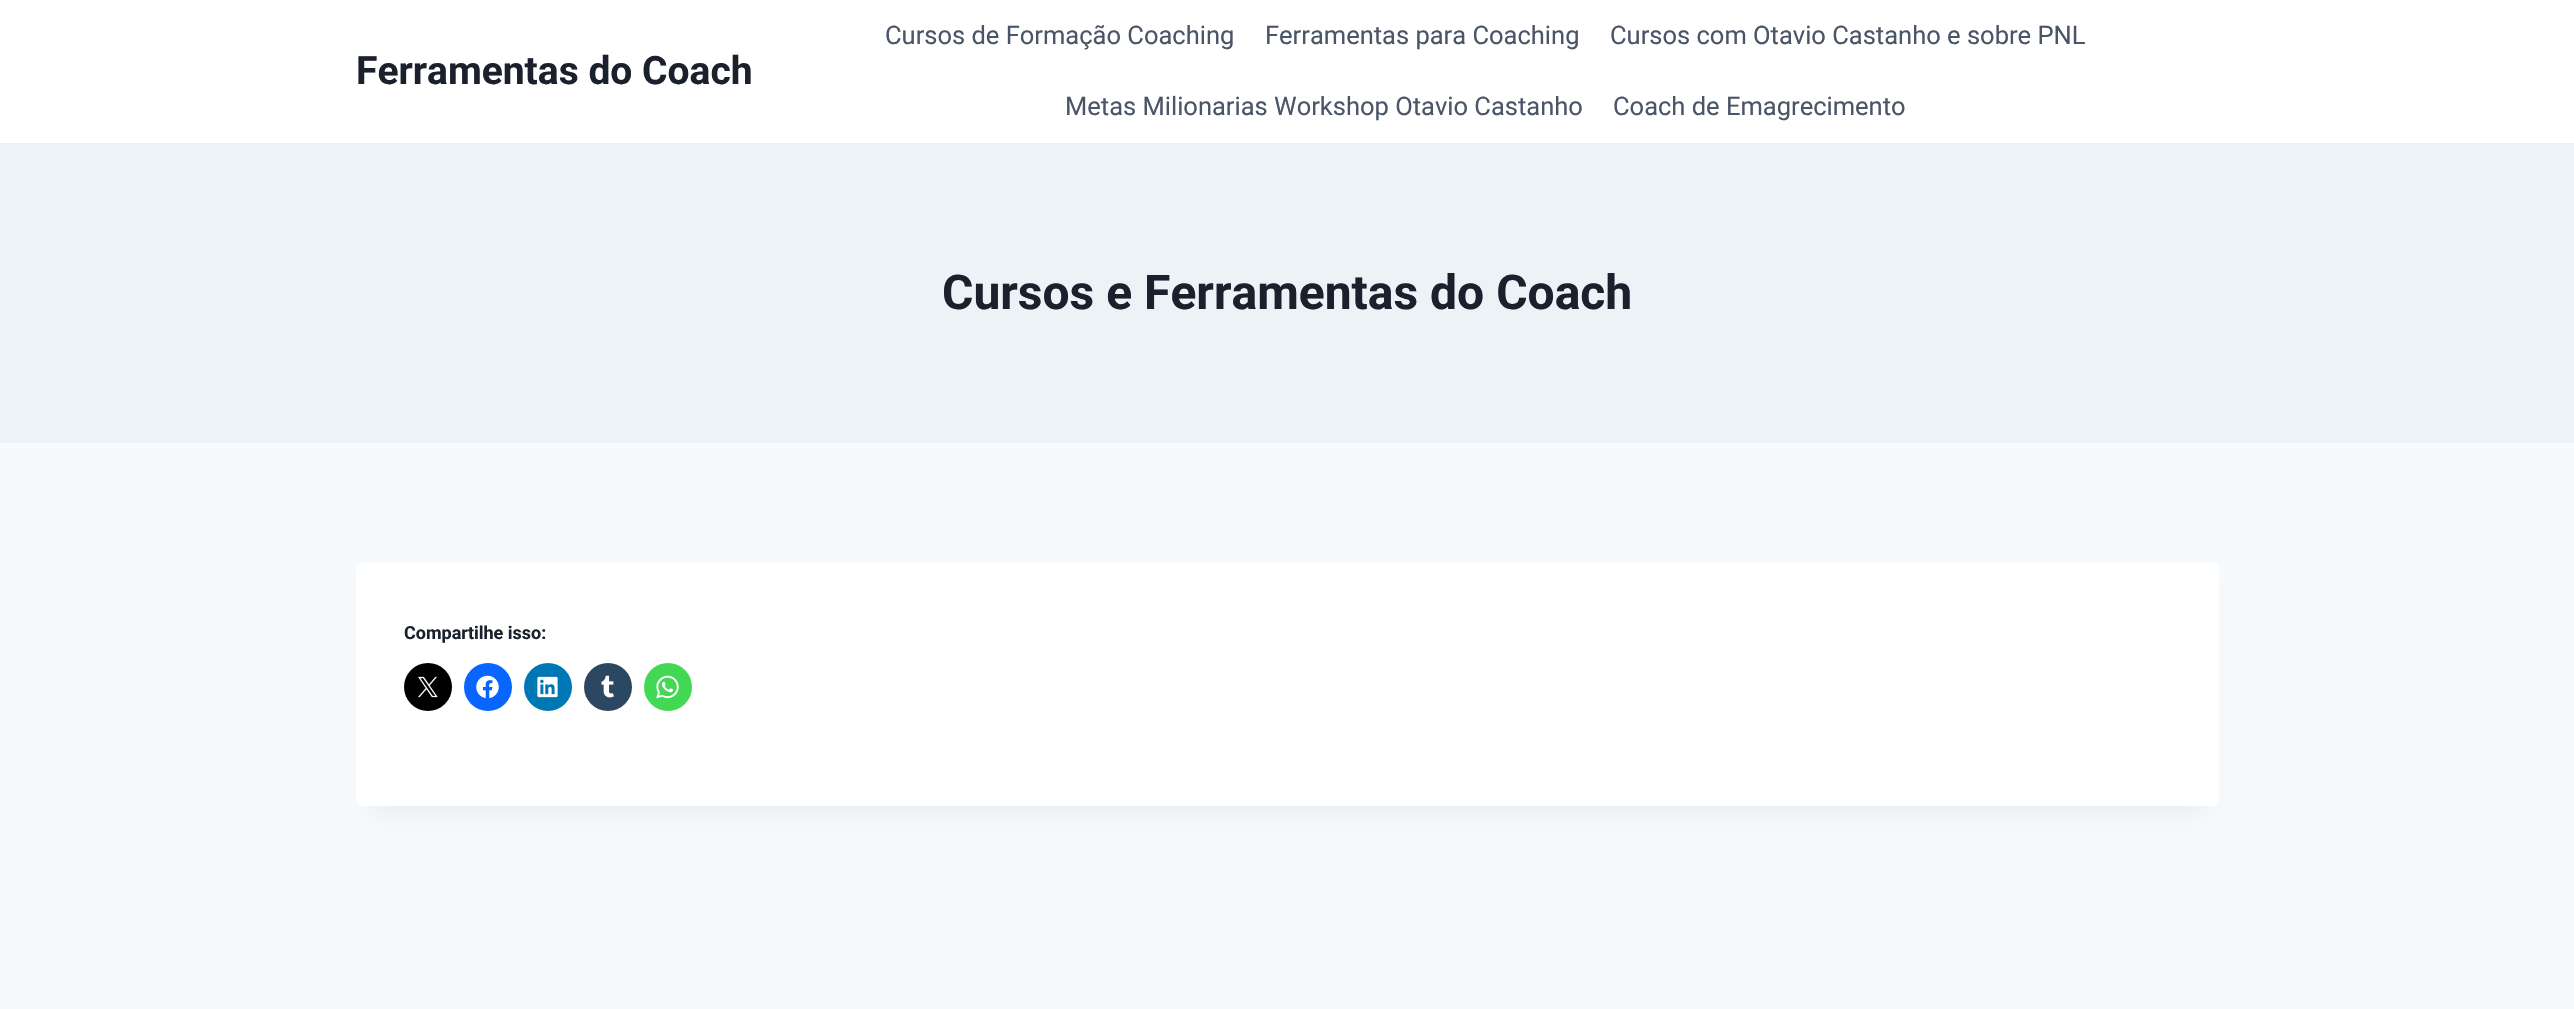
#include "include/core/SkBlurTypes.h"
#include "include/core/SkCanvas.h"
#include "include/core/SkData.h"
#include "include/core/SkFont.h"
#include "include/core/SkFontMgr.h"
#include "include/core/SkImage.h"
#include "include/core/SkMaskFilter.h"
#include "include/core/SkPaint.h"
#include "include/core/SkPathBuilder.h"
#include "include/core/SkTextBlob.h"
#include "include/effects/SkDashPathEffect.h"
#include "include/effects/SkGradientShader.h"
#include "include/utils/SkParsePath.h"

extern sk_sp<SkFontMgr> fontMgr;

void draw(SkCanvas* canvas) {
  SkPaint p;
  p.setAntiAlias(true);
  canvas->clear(SkColorSetRGB(247, 250, 252));
  p.setColor(SK_ColorWHITE);
  canvas->drawRect(SkRect::MakeLTRB(0, 0, 2574, 143), p);
  p.setColor(SkColorSetRGB(237, 242, 247));
  canvas->drawRect(SkRect::MakeLTRB(0, 143, 2574, 443), p);
  p.setColor(SkColorSetARGB(13, 0, 0, 0));
  p.setMaskFilter(SkMaskFilter::MakeBlur(kNormal_SkBlurStyle, 11));
  canvas->drawRect(SkRect::MakeLTRB(371, 600, 2204, 813), p);
  p.setMaskFilter(nullptr);
  p.setColor(SK_ColorWHITE);
  canvas->drawRoundRect(SkRect::MakeLTRB(356, 563, 2219, 806), 6, 6, p);
  p.setColor(SK_ColorBLACK);
  canvas->drawCircle(428, 687, 24, p);
  canvas->drawImageRect(SkImages::DeferredFromEncodedData(SkData::MakeFromFileName("images/1.png")), SkRect::MakeLTRB(418, 676, 438, 698), SkSamplingOptions());
  p.setColor(SkColorSetRGB(8, 102, 255));
  canvas->drawCircle(488, 687, 24, p);
  canvas->drawImageRect(SkImages::DeferredFromEncodedData(SkData::MakeFromFileName("images/2.png")), SkRect::MakeLTRB(476, 675, 499, 699), SkSamplingOptions());
  p.setColor(SkColorSetRGB(0, 119, 181));
  canvas->drawCircle(548, 687, 24, p);
  canvas->drawImageRect(SkImages::DeferredFromEncodedData(SkData::MakeFromFileName("images/3.png")), SkRect::MakeLTRB(537, 676, 558, 698), SkSamplingOptions());
  p.setColor(SkColorSetRGB(44, 71, 98));
  canvas->drawCircle(608, 687, 24, p);
  canvas->drawImageRect(SkImages::DeferredFromEncodedData(SkData::MakeFromFileName("images/4.png")), SkRect::MakeLTRB(601, 675, 614, 698), SkSamplingOptions());
  p.setColor(SkColorSetRGB(67, 216, 84));
  canvas->drawCircle(668, 687, 24, p);
  canvas->drawImageRect(SkImages::DeferredFromEncodedData(SkData::MakeFromFileName("images/5.png")), SkRect::MakeLTRB(656, 675, 679, 699), SkSamplingOptions());
  SkFont font1(fontMgr->matchFamilyStyle("Roboto", SkFontStyle::Bold()), 39);
  font1.setSubpixel(true);
  p.setColor(SkColorSetRGB(26, 32, 44));
  canvas->drawString("Ferramentas do Coach", 356, 84, font1, p);
  SkFont font2(fontMgr->matchFamilyStyle("Roboto", SkFontStyle::Normal()), 25.5f);
  font2.setSubpixel(true);
  p.setColor(SkColorSetRGB(74, 85, 104));
  canvas->drawString("Cursos de Formação Coaching", 885, 44, font2, p);
  canvas->drawString("Ferramentas para Coaching", 1265, 44, font2, p);
  canvas->drawString("Cursos com Otavio Castanho e sobre PNL", 1610, 44, font2, p);
  canvas->drawString("Metas Milionarias Workshop Otavio Castanho", 1065, 115, font2, p);
  canvas->drawString("Coach de Emagrecimento", 1613, 115, font2, p);
  SkFont font3(fontMgr->matchFamilyStyle("Roboto", SkFontStyle::Bold()), 48);
  font3.setSubpixel(true);
  p.setColor(SkColorSetRGB(26, 32, 44));
  canvas->drawString("Cursos e Ferramentas do Coach", 942, 309, font3, p);
  SkFont font4(fontMgr->matchFamilyStyle("Roboto", SkFontStyle::Bold()), 18);
  font4.setSubpixel(true);
  canvas->drawString("Compartilhe isso:", 404, 639, font4, p);
}
